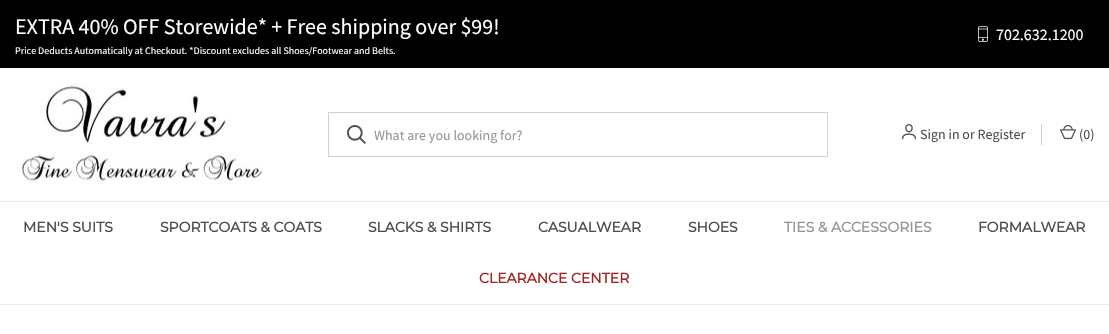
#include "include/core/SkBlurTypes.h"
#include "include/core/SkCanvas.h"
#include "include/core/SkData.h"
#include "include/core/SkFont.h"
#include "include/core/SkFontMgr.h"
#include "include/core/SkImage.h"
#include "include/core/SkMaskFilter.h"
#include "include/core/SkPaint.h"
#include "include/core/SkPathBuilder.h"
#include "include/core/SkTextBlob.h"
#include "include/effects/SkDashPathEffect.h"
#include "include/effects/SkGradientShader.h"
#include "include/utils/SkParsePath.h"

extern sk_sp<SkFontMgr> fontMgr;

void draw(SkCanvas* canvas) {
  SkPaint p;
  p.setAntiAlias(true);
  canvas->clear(SK_ColorWHITE);
  p.setColor(SK_ColorBLACK);
  canvas->drawRect(SkRect::MakeLTRB(0, 0, 1109, 68), p);
  canvas->drawImageRect(SkImages::DeferredFromEncodedData(SkData::MakeFromFileName("images/1.png")), SkRect::MakeLTRB(978, 26, 988, 42), SkSamplingOptions());
  canvas->drawImageRect(SkImages::DeferredFromEncodedData(SkData::MakeFromFileName("images/2.png")), SkRect::MakeLTRB(21, 83, 263, 184), SkSamplingOptions());
  p.setStyle(SkPaint::kStroke_Style);
  p.setStrokeWidth(1);
  p.setColor(SkColorSetRGB(210, 210, 210));
  canvas->drawRect(SkRect::MakeLTRB(328.5f, 112.5f, 827.5f, 156.5f), p);
  canvas->drawImageRect(SkImages::DeferredFromEncodedData(SkData::MakeFromFileName("images/3.png")), SkRect::MakeLTRB(347, 125, 366, 144), SkSamplingOptions());
  canvas->drawImageRect(SkImages::DeferredFromEncodedData(SkData::MakeFromFileName("images/4.png")), SkRect::MakeLTRB(902, 124, 916, 140), SkSamplingOptions());
  p.setStyle(SkPaint::kFill_Style);
  canvas->drawRect(SkRect::MakeLTRB(1041, 124, 1042, 145), p);
  canvas->drawImageRect(SkImages::DeferredFromEncodedData(SkData::MakeFromFileName("images/5.png")), SkRect::MakeLTRB(1060, 125, 1076, 140), SkSamplingOptions());
  p.setColor(SkColorSetRGB(235, 235, 235));
  canvas->drawRect(SkRect::MakeLTRB(0, 201, 1109, 202), p);
  canvas->drawRect(SkRect::MakeLTRB(0, 304, 1109, 305), p);
  SkFont font1(fontMgr->matchFamilyStyle("Source Sans Pro", SkFontStyle::Normal()), 22);
  font1.setSubpixel(true);
  p.setColor(SK_ColorWHITE);
  canvas->drawString("EXTRA 40% OFF Storewide* + Free shipping over $99!", 15, 34, font1, p);
  SkFont font2(fontMgr->matchFamilyStyle("Source Sans Pro", SkFontStyle::Normal()), 10);
  font2.setSubpixel(true);
  canvas->drawString("Price Deducts Automatically at Checkout. *Discount excludes all Shoes/Footwear and Belts.", 15, 54, font2, p);
  SkFont font3(fontMgr->matchFamilyStyle("Source Sans Pro", SkFontStyle::Normal()), 16);
  font3.setSubpixel(true);
  canvas->drawString("702.632.1200", 996, 40, font3, p);
  SkFont font4(fontMgr->matchFamilyStyle("Source Sans Pro", SkFontStyle::Normal()), 14);
  font4.setSubpixel(true);
  p.setColor(SkColorSetRGB(150, 150, 150));
  canvas->drawString("What are you looking for?", 374, 140, font4, p);
  p.setColor(SkColorSetRGB(78, 78, 78));
  canvas->drawString("Sign in or Register", 920, 139, font4, p);
  canvas->drawString("(0)", 1079, 139, font4, p);
  SkFont font5(fontMgr->matchFamilyStyle("Montserrat", SkFontStyle::Bold()), 14);
  font5.setSubpixel(true);
  canvas->drawString("MEN'S SUITS", 23, 232, font5, p);
  canvas->drawString("SPORTCOATS & COATS", 160, 232, font5, p);
  canvas->drawString("SLACKS & SHIRTS", 368, 232, font5, p);
  canvas->drawString("CASUALWEAR", 538, 232, font5, p);
  canvas->drawString("SHOES", 688, 232, font5, p);
  p.setColor(SkColorSetRGB(150, 150, 150));
  canvas->drawString("TIES & ACCESSORIES", 784, 232, font5, p);
  p.setColor(SkColorSetRGB(78, 78, 78));
  canvas->drawString("FORMALWEAR", 978, 232, font5, p);
  p.setColor(SkColorSetRGB(163, 35, 35));
  canvas->drawString("CLEARANCE CENTER", 479, 283, font5, p);
}
